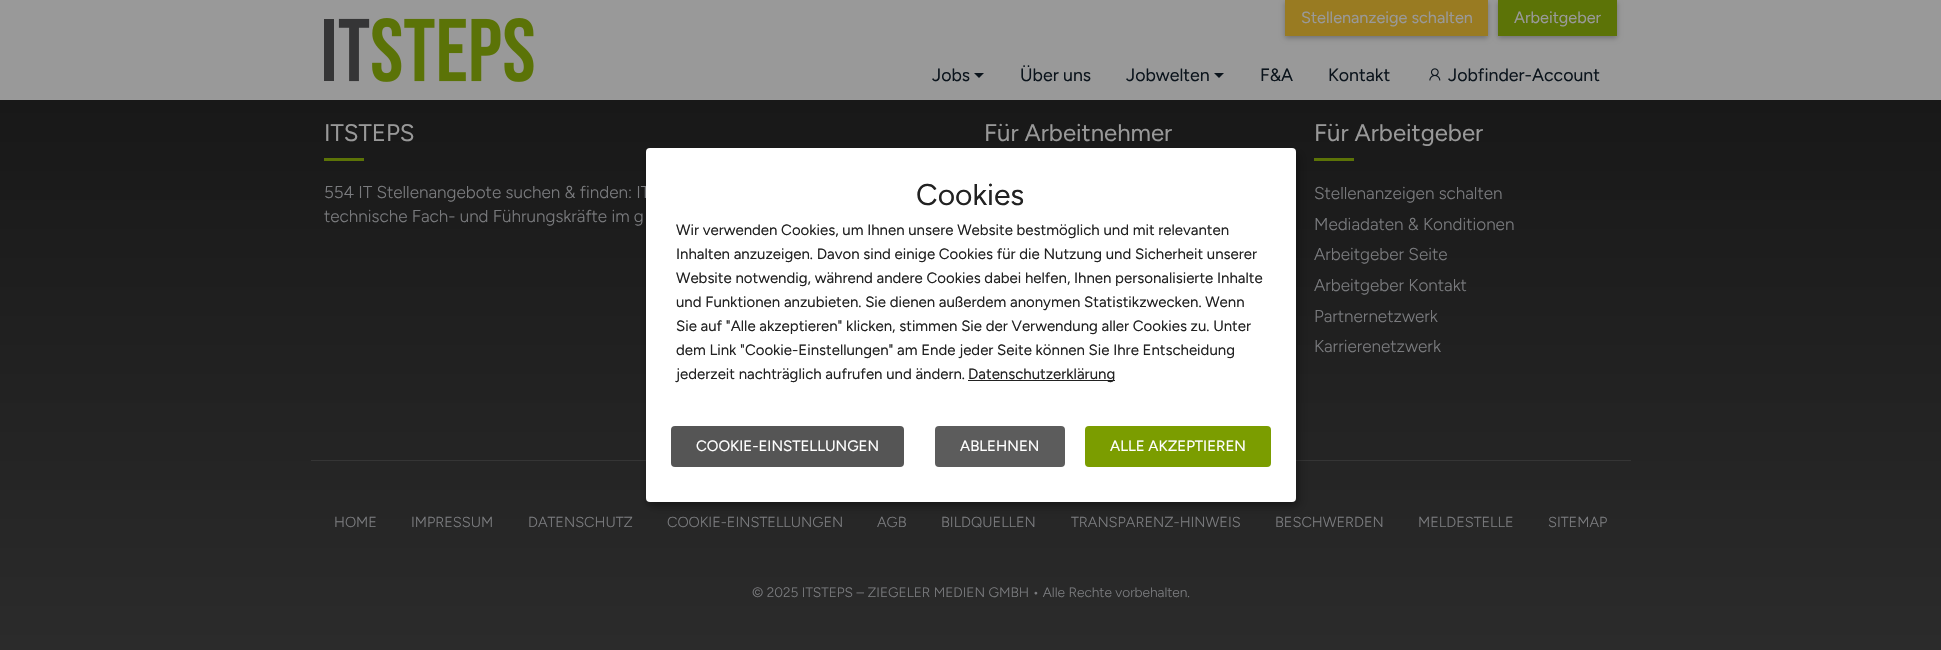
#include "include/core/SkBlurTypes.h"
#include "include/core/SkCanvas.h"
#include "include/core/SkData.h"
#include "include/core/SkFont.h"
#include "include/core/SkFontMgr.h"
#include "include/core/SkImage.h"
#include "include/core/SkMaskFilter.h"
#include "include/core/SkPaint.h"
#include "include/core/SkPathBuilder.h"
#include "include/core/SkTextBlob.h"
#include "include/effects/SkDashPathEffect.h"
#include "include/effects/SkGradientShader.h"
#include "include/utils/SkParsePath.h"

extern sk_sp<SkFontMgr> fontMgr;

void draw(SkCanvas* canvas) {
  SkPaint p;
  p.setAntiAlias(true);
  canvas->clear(SK_ColorWHITE);
  p.setColor(SkColorSetRGB(153, 153, 153));
  canvas->drawRect(SkRect::MakeLTRB(0, 0, 1941, 100), p);
  canvas->drawImageRect(SkImages::DeferredFromEncodedData(SkData::MakeFromFileName("images/1.png")), SkRect::MakeLTRB(324, 18, 534, 82), SkSamplingOptions());
  p.setColor(SkColorSetARGB(66, 0, 0, 0));
  p.setMaskFilter(SkMaskFilter::MakeBlur(kNormal_SkBlurStyle, 2.5f));
  canvas->drawRect(SkRect::MakeLTRB(1285, 2, 1488, 38), p);
  p.setMaskFilter(nullptr);
  p.setColor(SkColorSetRGB(153, 123, 34));
  canvas->drawRect(SkRect::MakeLTRB(1285, 0, 1488, 36), p);
  p.setColor(SkColorSetARGB(66, 0, 0, 0));
  p.setMaskFilter(SkMaskFilter::MakeBlur(kNormal_SkBlurStyle, 2.5f));
  canvas->drawRect(SkRect::MakeLTRB(1498, 2, 1617, 38), p);
  p.setMaskFilter(nullptr);
  p.setColor(SkColorSetRGB(92, 115, 7));
  canvas->drawRect(SkRect::MakeLTRB(1498, 0, 1617, 36), p);
  p.setColor(SkColorSetRGB(11, 20, 28));
  canvas->drawPath(SkPathBuilder().moveTo(974, 73).lineTo(984, 73).lineTo(979, 78).close().detach(), p);
  canvas->drawPath(SkPathBuilder().moveTo(1214, 73).lineTo(1224, 73).lineTo(1219, 78).close().detach(), p);
  canvas->drawImageRect(SkImages::DeferredFromEncodedData(SkData::MakeFromFileName("images/2.png")), SkRect::MakeLTRB(1429, 68, 1441, 81), SkSamplingOptions());
  {
    const SkColor colors[] = {SkColorSetRGB(43, 43, 43), SkColorSetRGB(22, 22, 22)};
    const float stops[] = {0, 1};
    const SkPoint ends[] = {{971, 650}, {971, 41}};
    p.setShader(SkGradientShader::MakeLinear(ends, colors, stops, 2, SkTileMode::kClamp));
    p.setAlpha(255);
  }
  canvas->drawRect(SkRect::MakeLTRB(0, 100, 1941, 650), p);
  p.setShader(nullptr);
  p.setColor(SkColorSetRGB(92, 115, 7));
  canvas->drawRect(SkRect::MakeLTRB(324, 158, 364, 161), p);
  canvas->drawRect(SkRect::MakeLTRB(1314, 158, 1354, 161), p);
  p.setColor(SkColorSetRGB(53, 53, 53));
  canvas->drawRect(SkRect::MakeLTRB(311, 460, 1631, 461), p);
  p.setColor(SkColorSetARGB(48, 0, 0, 0));
  p.setMaskFilter(SkMaskFilter::MakeBlur(kNormal_SkBlurStyle, 5));
  canvas->drawRoundRect(SkRect::MakeLTRB(651, 153, 1301, 507), 4, 4, p);
  p.setMaskFilter(nullptr);
  p.setColor(SkColorSetARGB(51, 0, 0, 0));
  p.setMaskFilter(SkMaskFilter::MakeBlur(kNormal_SkBlurStyle, 3));
  canvas->drawRoundRect(SkRect::MakeLTRB(646, 152, 1296, 506), 4, 4, p);
  p.setMaskFilter(nullptr);
  SkFont font1(fontMgr->matchFamilyStyle("Figtree", SkFontStyle::Normal()), 16.25f);
  font1.setSubpixel(true);
  p.setColor(SkColorSetRGB(153, 153, 153));
  canvas->drawString("Stellenanzeige schalten", 1301, 23, font1, p);
  canvas->drawString("Arbeitgeber", 1514, 23, font1, p);
  SkFont font2(fontMgr->matchFamilyStyle("Figtree", SkFontStyle::Normal()), 17.75f);
  font2.setSubpixel(true);
  p.setColor(SkColorSetRGB(11, 20, 28));
  canvas->drawString("Jobs", 932, 81, font2, p);
  canvas->drawString("Über uns", 1020, 81, font2, p);
  canvas->drawString("Jobwelten", 1126, 81, font2, p);
  canvas->drawString("F&A", 1260, 81, font2, p);
  canvas->drawString("Kontakt", 1328, 81, font2, p);
  canvas->drawString("Jobfinder-Account", 1448, 81, font2, p);
  SkFont font3(fontMgr->matchFamilyStyle("Figtree", SkFontStyle::Normal()), 24);
  font3.setSubpixel(true);
  p.setColor(SkColorSetRGB(153, 153, 153));
  canvas->drawString("ITSTEPS", 324, 141, font3, p);
  SkFont font4(fontMgr->matchFamilyStyle("Figtree", SkFontStyle(300, SkFontStyle::kNormal_Width, SkFontStyle::kUpright_Slant)), 17.1f);
  font4.setSubpixel(true);
  p.setColor(SkColorSetRGB(122, 123, 126));
  canvas->drawString("554 IT Stellenangebote suchen & finden: IT", 324, 198, font4, p);
  canvas->drawString("technische Fach- und Führungskräfte im g", 324, 222, font4, p);
  p.setColor(SkColorSetRGB(153, 153, 153));
  canvas->drawString("Für Arbeitnehmer", 984, 141, font3, p);
  canvas->drawString("Für Arbeitgeber", 1314, 141, font3, p);
  p.setColor(SkColorSetRGB(122, 123, 126));
  canvas->drawString("Stellenanzeigen schalten", 1314, 199, font4, p);
  canvas->drawString("Mediadaten & Konditionen", 1314, 230, font4, p);
  canvas->drawString("Arbeitgeber Seite", 1314, 260, font4, p);
  canvas->drawString("Arbeitgeber Kontakt", 1314, 291, font4, p);
  canvas->drawString("Partnernetzwerk", 1314, 322, font4, p);
  canvas->drawString("Karrierenetzwerk", 1314, 352, font4, p);
  SkFont font5(fontMgr->matchFamilyStyle("Figtree", SkFontStyle(300, SkFontStyle::kNormal_Width, SkFontStyle::kUpright_Slant)), 14.5f);
  font5.setSubpixel(true);
  canvas->drawString("HOME", 334, 527, font5, p);
  canvas->drawString("IMPRESSUM", 411, 527, font5, p);
  canvas->drawString("DATENSCHUTZ", 528, 527, font5, p);
  canvas->drawString("COOKIE-EINSTELLUNGEN", 667, 527, font5, p);
  canvas->drawString("AGB", 877, 527, font5, p);
  canvas->drawString("BILDQUELLEN", 941, 527, font5, p);
  canvas->drawString("TRANSPARENZ-HINWEIS", 1071, 527, font5, p);
  canvas->drawString("BESCHWERDEN", 1275, 527, font5, p);
  canvas->drawString("MELDESTELLE", 1418, 527, font5, p);
  canvas->drawString("SITEMAP", 1548, 527, font5, p);
  SkFont font6(fontMgr->matchFamilyStyle("Figtree", SkFontStyle(300, SkFontStyle::kNormal_Width, SkFontStyle::kUpright_Slant)), 13.7f);
  font6.setSubpixel(true);
  canvas->drawString("© 2025 ITSTEPS – ZIEGELER MEDIEN GMBH • Alle Rechte vorbehalten.", 752, 597, font6, p);
  p.setColor(SK_ColorWHITE);
  canvas->drawRoundRect(SkRect::MakeLTRB(646, 148, 1296, 502), 4, 4, p);
  SkFont font7(fontMgr->matchFamilyStyle("Figtree", SkFontStyle::Normal()), 30);
  font7.setSubpixel(true);
  p.setColor(SkColorSetRGB(34, 34, 34));
  canvas->drawString("Cookies", 916, 205, font7, p);
  SkFont font8(fontMgr->matchFamilyStyle("Figtree", SkFontStyle::Normal()), 15);
  font8.setSubpixel(true);
  canvas->drawString("Wir verwenden Cookies, um Ihnen unsere Website bestmöglich und mit relevanten", 676, 235, font8, p);
  canvas->drawString("Inhalten anzuzeigen. Davon sind einige Cookies für die Nutzung und Sicherheit unserer", 676, 259, font8, p);
  canvas->drawString("Website notwendig, während andere Cookies dabei helfen, Ihnen personalisierte Inhalte", 676, 283, font8, p);
  canvas->drawString("und Funktionen anzubieten. Sie dienen außerdem anonymen Statistikzwecken. Wenn", 676, 307, font8, p);
  canvas->drawString("Sie auf \"Alle akzeptieren\" klicken, stimmen Sie der Verwendung aller Cookies zu. Unter", 676, 331, font8, p);
  canvas->drawString("dem Link \"Cookie-Einstellungen\" am Ende jeder Seite können Sie Ihre Entscheidung", 676, 355, font8, p);
  canvas->drawString("jederzeit nachträglich aufrufen und ändern.", 676, 379, font8, p);
  canvas->drawRect(SkRect::MakeLTRB(968, 380, 1115, 381), p);
  canvas->drawString("Datenschutzerklärung", 968, 379, font8, p);
  p.setColor(SkColorSetRGB(85, 85, 85));
  canvas->drawRoundRect(SkRect::MakeLTRB(671, 426, 904, 467), 4, 4, p);
  p.setColor(SK_ColorWHITE);
  canvas->drawString("COOKIE-EINSTELLUNGEN", 696, 451, font8, p);
  p.setColor(SkColorSetRGB(92, 92, 92));
  canvas->drawRoundRect(SkRect::MakeLTRB(935, 426, 1065, 467), 4, 4, p);
  p.setColor(SK_ColorWHITE);
  canvas->drawString("ABLEHNEN", 960, 451, font8, p);
  p.setColor(SkColorSetRGB(123, 157, 0));
  canvas->drawRoundRect(SkRect::MakeLTRB(1085, 426, 1271, 467), 4, 4, p);
  p.setColor(SK_ColorWHITE);
  canvas->drawString("ALLE AKZEPTIEREN", 1110, 451, font8, p);
}
